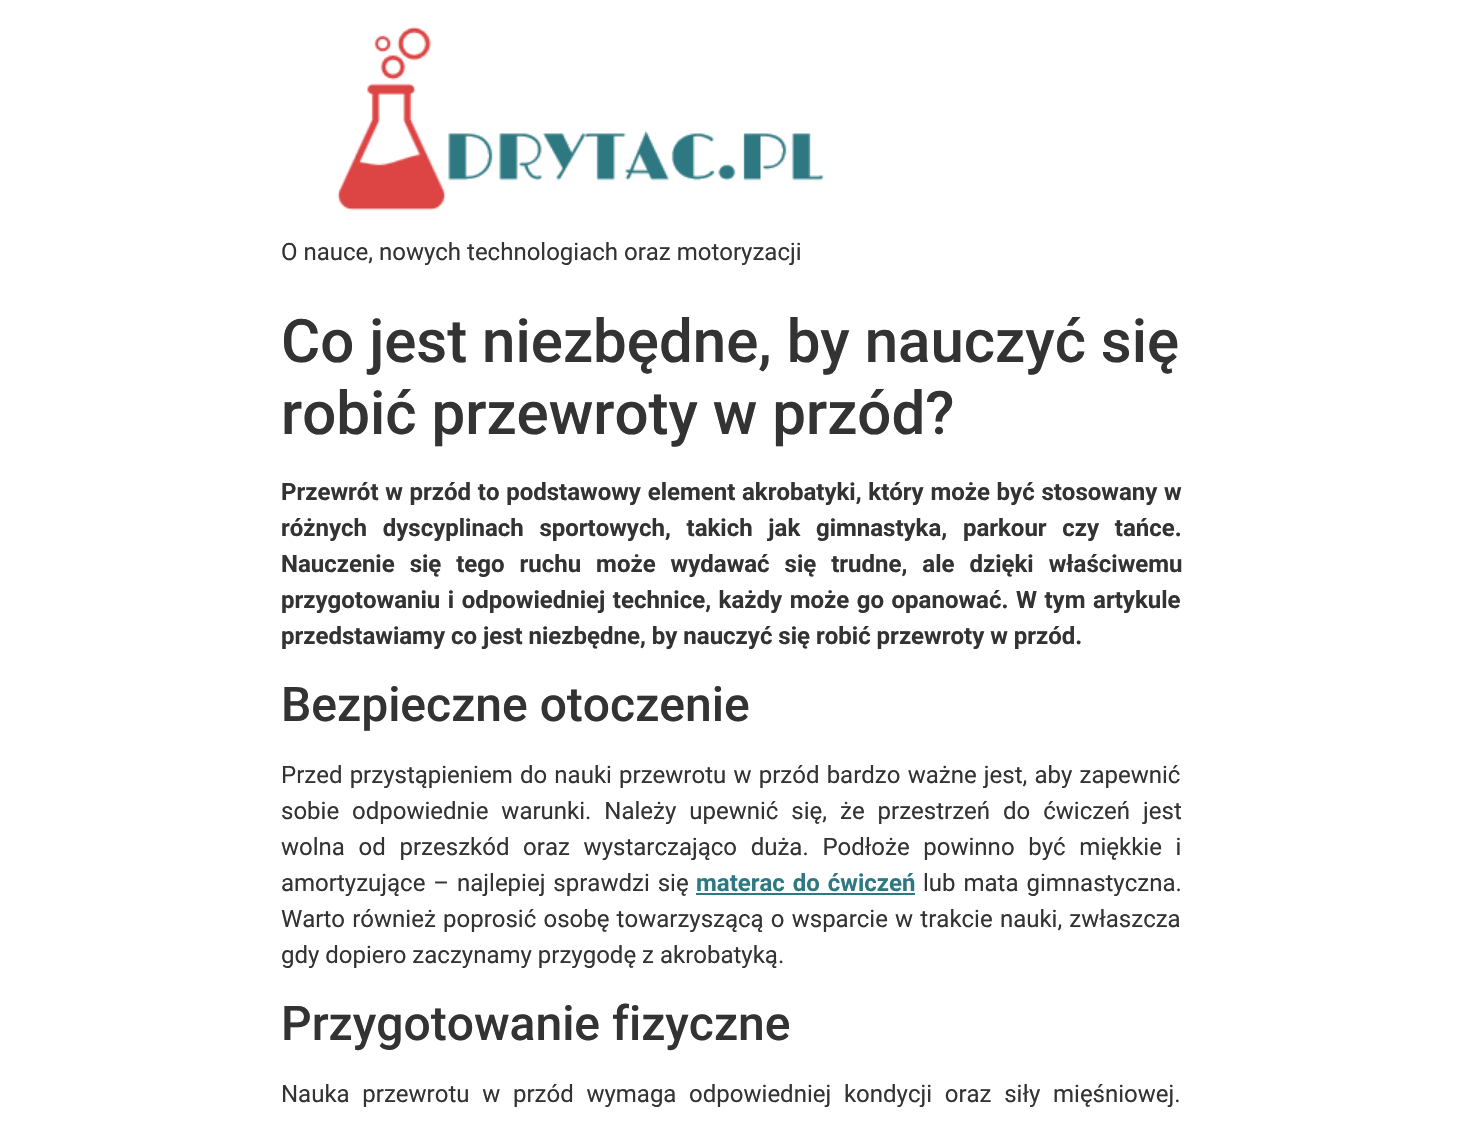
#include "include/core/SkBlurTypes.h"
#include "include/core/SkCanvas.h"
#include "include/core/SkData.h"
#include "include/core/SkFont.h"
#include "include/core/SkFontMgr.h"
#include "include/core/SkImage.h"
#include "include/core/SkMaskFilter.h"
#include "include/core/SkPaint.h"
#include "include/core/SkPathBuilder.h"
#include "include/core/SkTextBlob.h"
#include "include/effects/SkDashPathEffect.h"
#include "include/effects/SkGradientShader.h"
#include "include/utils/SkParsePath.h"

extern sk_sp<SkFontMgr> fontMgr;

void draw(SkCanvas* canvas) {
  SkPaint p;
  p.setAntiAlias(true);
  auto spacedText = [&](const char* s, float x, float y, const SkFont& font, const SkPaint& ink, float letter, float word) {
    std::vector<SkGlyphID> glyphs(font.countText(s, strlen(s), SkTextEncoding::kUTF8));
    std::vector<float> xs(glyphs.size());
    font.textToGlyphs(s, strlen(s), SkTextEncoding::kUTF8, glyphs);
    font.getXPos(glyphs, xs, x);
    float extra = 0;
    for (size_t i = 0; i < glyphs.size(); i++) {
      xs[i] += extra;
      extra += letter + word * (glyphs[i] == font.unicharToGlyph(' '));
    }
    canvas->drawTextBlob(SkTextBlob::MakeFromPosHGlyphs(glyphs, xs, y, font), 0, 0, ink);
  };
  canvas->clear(SK_ColorWHITE);
  canvas->drawImageRect(SkImages::DeferredFromEncodedData(SkData::MakeFromFileName("images/1.png")), SkRect::MakeLTRB(337, 26, 824, 211), SkSamplingOptions());
  p.setColor(SkColorSetRGB(46, 120, 130));
  canvas->drawRect(SkRect::MakeLTRB(696, 893, 915, 895), p);
  SkFont font1(fontMgr->matchFamilyStyle("Roboto", SkFontStyle::Normal()), 24);
  font1.setSubpixel(true);
  p.setColor(SkColorSetRGB(51, 51, 51));
  canvas->drawString("O nauce, nowych technologiach oraz motoryzacji", 281, 260, font1, p);
  SkFont font2(fontMgr->matchFamilyStyle("Roboto", SkFontStyle(500, SkFontStyle::kNormal_Width, SkFontStyle::kUpright_Slant)), 60);
  font2.setSubpixel(true);
  canvas->drawString("Co jest niezbędne, by nauczyć się", 281, 362, font2, p);
  canvas->drawString("robić przewroty w przód?", 281, 434, font2, p);
  SkFont font3(fontMgr->matchFamilyStyle("Roboto", SkFontStyle::Bold()), 24);
  font3.setSubpixel(true);
  spacedText("Przewrót w przód to podstawowy element akrobatyki, który może być stosowany w", 281, 500, font3, p, 0, 0.75f);
  spacedText("różnych dyscyplinach sportowych, takich jak gimnastyka, parkour czy tańce.", 281, 536, font3, p, 0, 9.75f);
  spacedText("Nauczenie się tego ruchu może wydawać się trudne, ale dzięki właściwemu", 281, 572, font3, p, 0, 9);
  spacedText("przygotowaniu i odpowiedniej technice, każdy może go opanować. W tym artykule", 281, 608, font3, p, 0, 1.6f);
  canvas->drawString("przedstawiamy co jest niezbędne, by nauczyć się robić przewroty w przód.", 281, 644, font3, p);
  SkFont font4(fontMgr->matchFamilyStyle("Roboto", SkFontStyle(500, SkFontStyle::kNormal_Width, SkFontStyle::kUpright_Slant)), 48);
  font4.setSubpixel(true);
  canvas->drawString("Bezpieczne otoczenie", 281, 721, font4, p);
  spacedText("Przed przystąpieniem do nauki przewrotu w przód bardzo ważne jest, aby zapewnić", 281, 783, font1, p, 0, 1.25f);
  spacedText("sobie odpowiednie warunki. Należy upewnić się, że przestrzeń do ćwiczeń jest", 281, 819, font1, p, 0, 7);
  spacedText("wolna od przeszkód oraz wystarczająco duża. Podłoże powinno być miękkie i", 281, 855, font1, p, 0, 7.75f);
  spacedText("amortyzujące – najlepiej sprawdzi się", 281, 891, font1, p, 0, 2);
  p.setColor(SkColorSetRGB(46, 120, 130));
  spacedText("materac do ćwiczeń", 696, 891, font3, p, 0, 2);
  p.setColor(SkColorSetRGB(51, 51, 51));
  spacedText("lub mata gimnastyczna.", 923, 891, font1, p, 0, 2);
  spacedText("Warto również poprosić osobę towarzyszącą o wsparcie w trakcie nauki, zwłaszcza", 281, 927, font1, p, 0, 1.25f);
  canvas->drawString("gdy dopiero zaczynamy przygodę z akrobatyką.", 281, 963, font1, p);
  canvas->drawString("Przygotowanie fizyczne", 281, 1040, font4, p);
  spacedText("Nauka przewrotu w przód wymaga odpowiedniej kondycji oraz siły mięśniowej.", 281, 1102, font1, p, 0, 6.75f);
}
